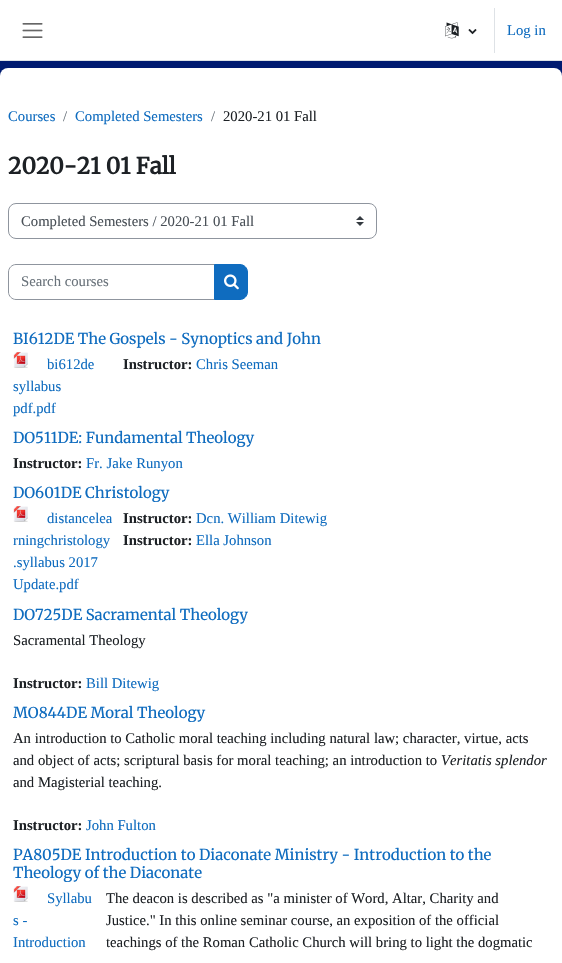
#include "include/core/SkBlurTypes.h"
#include "include/core/SkCanvas.h"
#include "include/core/SkData.h"
#include "include/core/SkFont.h"
#include "include/core/SkFontMgr.h"
#include "include/core/SkImage.h"
#include "include/core/SkMaskFilter.h"
#include "include/core/SkPaint.h"
#include "include/core/SkPathBuilder.h"
#include "include/core/SkTextBlob.h"
#include "include/effects/SkDashPathEffect.h"
#include "include/effects/SkGradientShader.h"
#include "include/utils/SkParsePath.h"

extern sk_sp<SkFontMgr> fontMgr;

void draw(SkCanvas* canvas) {
  SkPaint p;
  p.setAntiAlias(true);
  canvas->clear(SkColorSetRGB(0, 27, 113));
  p.setColor(SK_ColorWHITE);
  canvas->drawRect(SkRect::MakeLTRB(0, 0, 562, 60), p);
  p.setColor(SkColorSetRGB(222, 226, 230));
  canvas->drawRect(SkRect::MakeLTRB(0, 60, 562, 61), p);
  canvas->drawImageRect(SkImages::DeferredFromEncodedData(SkData::MakeFromFileName("images/1.png")), SkRect::MakeLTRB(22, 23, 43, 38), SkSamplingOptions());
  canvas->drawImageRect(SkImages::DeferredFromEncodedData(SkData::MakeFromFileName("images/2.png")), SkRect::MakeLTRB(445, 22, 459, 39), SkSamplingOptions());
  canvas->drawImageRect(SkImages::DeferredFromEncodedData(SkData::MakeFromFileName("images/3.png")), SkRect::MakeLTRB(468, 29, 477, 35), SkSamplingOptions());
  canvas->drawRect(SkRect::MakeLTRB(494, 8, 495, 53), p);
  p.setColor(SK_ColorWHITE);
  canvas->drawRoundRect(SkRect::MakeLTRB(0, 68, 562, 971), 8, 8, p);
  canvas->drawImageRect(SkImages::DeferredFromEncodedData(SkData::MakeFromFileName("images/4.png")), SkRect::MakeLTRB(356, 216, 364, 226), SkSamplingOptions());
  p.setStyle(SkPaint::kStroke_Style);
  p.setStrokeWidth(1);
  p.setColor(SkColorSetRGB(143, 149, 158));
  canvas->drawRoundRect(SkRect::MakeLTRB(8.5f, 203.5f, 376.5f, 238.5f), 7.5f, 7.5f, p);
  canvas->drawPath(SkPathBuilder().moveTo(16, 264.5f).lineTo(214.5f, 264.5f).lineTo(214.5f, 299.5f).lineTo(16, 299.5f).cubicTo(12, 299.5f, 8.5f, 296, 8.5f, 292).lineTo(8.5f, 272).cubicTo(8.5f, 268, 12, 264.5f, 16, 264.5f).close().detach(), p);
  p.setStyle(SkPaint::kFill_Style);
  p.setColor(SkColorSetRGB(15, 108, 191));
  canvas->drawPath(SkPathBuilder().moveTo(214.5f, 264.5f).lineTo(240, 264.5f).cubicTo(244, 264.5f, 247.5f, 268, 247.5f, 272).lineTo(247.5f, 292).cubicTo(247.5f, 296, 244, 299.5f, 240, 299.5f).lineTo(214.5f, 299.5f).close().detach(), p);
  p.setStyle(SkPaint::kStroke_Style);
  canvas->drawPath(SkPathBuilder().moveTo(214.5f, 264.5f).lineTo(240, 264.5f).cubicTo(244, 264.5f, 247.5f, 268, 247.5f, 272).lineTo(247.5f, 292).cubicTo(247.5f, 296, 244, 299.5f, 240, 299.5f).lineTo(214.5f, 299.5f).close().detach(), p);
  canvas->drawImageRect(SkImages::DeferredFromEncodedData(SkData::MakeFromFileName("images/5.png")), SkRect::MakeLTRB(224, 274, 239, 290), SkSamplingOptions());
  canvas->drawImageRect(SkImages::DeferredFromEncodedData(SkData::MakeFromFileName("images/6.png")), SkRect::MakeLTRB(13, 352, 28, 368), SkSamplingOptions());
  canvas->drawImageRect(SkImages::DeferredFromEncodedData(SkData::MakeFromFileName("images/6.png")), SkRect::MakeLTRB(13, 506, 28, 522), SkSamplingOptions());
  canvas->drawImageRect(SkImages::DeferredFromEncodedData(SkData::MakeFromFileName("images/6.png")), SkRect::MakeLTRB(13, 886, 28, 902), SkSamplingOptions());
  SkFont font1(fontMgr->matchFamilyStyle("Liberation Serif", SkFontStyle::Normal()), 14.7f);
  font1.setSubpixel(true);
  p.setStyle(SkPaint::kFill_Style);
  canvas->drawString("Log in", 507, 35, font1, p);
  canvas->drawString("Courses", 8, 121, font1, p);
  p.setColor(SkColorSetRGB(106, 115, 123));
  canvas->drawString("/", 63, 121, font1, p);
  p.setColor(SkColorSetRGB(15, 108, 191));
  canvas->drawString("Completed Semesters", 75, 121, font1, p);
  p.setColor(SkColorSetRGB(106, 115, 123));
  canvas->drawString("/", 211, 121, font1, p);
  p.setColor(SkColorSetRGB(29, 33, 37));
  canvas->drawString("2020-21 01 Fall", 223, 121, font1, p);
  SkFont font2(fontMgr->matchFamilyStyle("Merriweather", SkFontStyle::Bold()), 22.5f);
  font2.setSubpixel(true);
  canvas->drawString("2020-21 01 Fall", 8, 174, font2, p);
  p.setColor(SkColorSetRGB(73, 80, 87));
  canvas->drawString("Completed Semesters / 2020-21 01 Fall", 21, 226, font1, p);
  p.setColor(SkColorSetRGB(106, 115, 123));
  canvas->drawString("Search courses", 21, 286, font1, p);
  SkFont font3(fontMgr->matchFamilyStyle("Merriweather", SkFontStyle(300, SkFontStyle::kNormal_Width, SkFontStyle::kUpright_Slant)), 15);
  font3.setSubpixel(true);
  p.setColor(SkColorSetRGB(15, 108, 191));
  canvas->drawString("BI612DE The Gospels - Synoptics and John", 13, 344, font3, p);
  canvas->drawString("bi612de", 47, 369, font1, p);
  canvas->drawString("syllabus", 13, 391, font1, p);
  canvas->drawString("pdf.pdf", 13, 413, font1, p);
  SkFont font4(fontMgr->matchFamilyStyle("Liberation Serif", SkFontStyle::Bold()), 14.7f);
  font4.setSubpixel(true);
  p.setColor(SkColorSetRGB(29, 33, 37));
  canvas->drawString("Instructor:", 123, 369, font4, p);
  p.setColor(SkColorSetRGB(15, 108, 191));
  canvas->drawString("Chris Seeman", 196, 369, font1, p);
  canvas->drawString("DO511DE: Fundamental Theology", 13, 443, font3, p);
  p.setColor(SkColorSetRGB(29, 33, 37));
  canvas->drawString("Instructor:", 13, 468, font4, p);
  p.setColor(SkColorSetRGB(15, 108, 191));
  canvas->drawString("Fr. Jake Runyon", 86, 468, font1, p);
  canvas->drawString("DO601DE Christology", 13, 498, font3, p);
  canvas->drawString("distancelea", 47, 523, font1, p);
  canvas->drawString("rningchristology", 13, 545, font1, p);
  canvas->drawString(".syllabus 2017", 13, 567, font1, p);
  canvas->drawString("Update.pdf", 13, 589, font1, p);
  p.setColor(SkColorSetRGB(29, 33, 37));
  canvas->drawString("Instructor:", 123, 523, font4, p);
  p.setColor(SkColorSetRGB(15, 108, 191));
  canvas->drawString("Dcn. William Ditewig", 196, 523, font1, p);
  p.setColor(SkColorSetRGB(29, 33, 37));
  canvas->drawString("Instructor:", 123, 545, font4, p);
  p.setColor(SkColorSetRGB(15, 108, 191));
  canvas->drawString("Ella Johnson", 196, 545, font1, p);
  canvas->drawString("DO725DE Sacramental Theology", 13, 620, font3, p);
  p.setColor(SkColorSetRGB(29, 33, 37));
  canvas->drawString("Sacramental Theology", 13, 645, font1, p);
  canvas->drawString("Instructor:", 13, 688, font4, p);
  p.setColor(SkColorSetRGB(15, 108, 191));
  canvas->drawString("Bill Ditewig", 86, 688, font1, p);
  canvas->drawString("MO844DE Moral Theology", 13, 718, font3, p);
  p.setColor(SkColorSetRGB(29, 33, 37));
  canvas->drawString("An introduction to Catholic moral teaching including natural law; character, virtue, acts", 13, 743, font1, p);
  canvas->drawString("and object of acts; scriptural basis for moral teaching; an introduction to", 13, 765, font1, p);
  SkFont font5(fontMgr->matchFamilyStyle("Liberation Serif", SkFontStyle::Italic()), 14.7f);
  font5.setSubpixel(true);
  canvas->drawString("Veritatis splendor", 441, 765, font5, p);
  canvas->drawString("and Magisterial teaching.", 13, 787, font1, p);
  canvas->drawString("Instructor:", 13, 830, font4, p);
  p.setColor(SkColorSetRGB(15, 108, 191));
  canvas->drawString("John Fulton", 86, 830, font1, p);
  canvas->drawString("PA805DE Introduction to Diaconate Ministry - Introduction to the", 13, 860, font3, p);
  canvas->drawString("Theology of the Diaconate", 13, 878, font3, p);
  canvas->drawString("Syllabu", 47, 903, font1, p);
  canvas->drawString("s -", 13, 925, font1, p);
  canvas->drawString("Introduction", 13, 947, font1, p);
  p.setColor(SkColorSetRGB(29, 33, 37));
  canvas->drawString("The deacon is described as \"a minister of Word, Altar, Charity and", 106, 903, font1, p);
  canvas->drawString("Justice.\" In this online seminar course, an exposition of the official", 106, 925, font1, p);
  canvas->drawString("teachings of the Roman Catholic Church will bring to light the dogmatic", 106, 947, font1, p);
}
